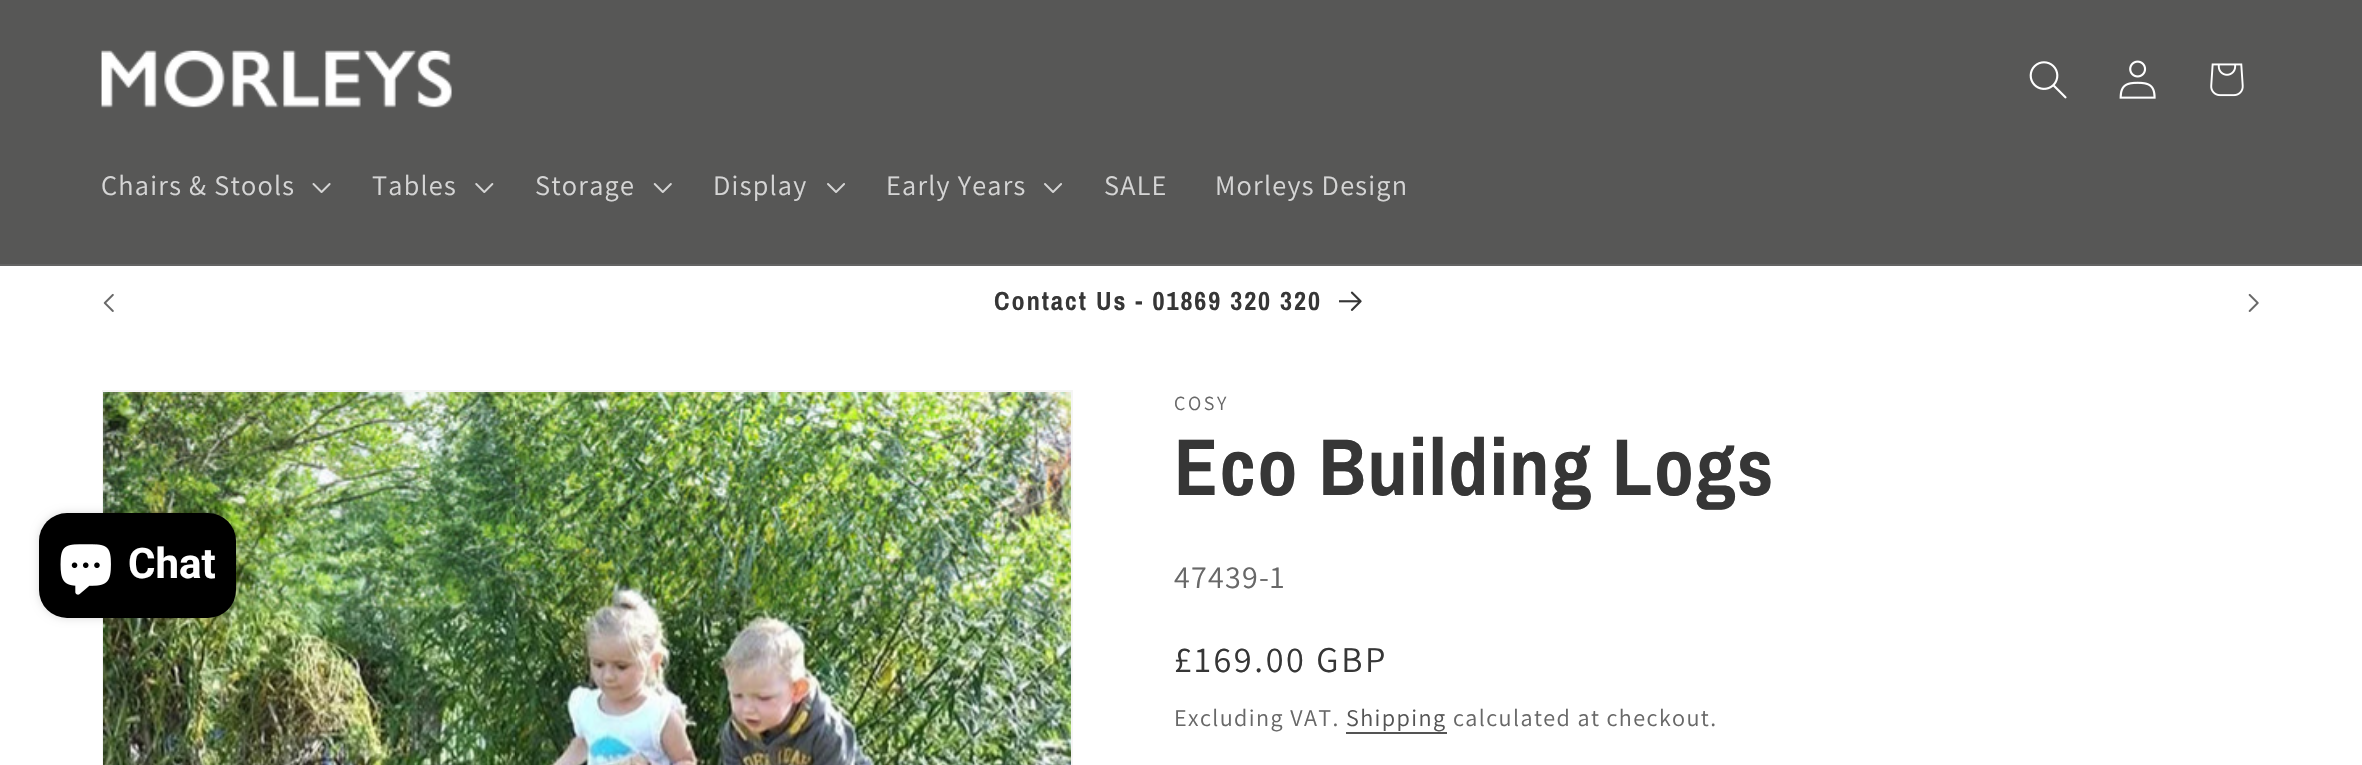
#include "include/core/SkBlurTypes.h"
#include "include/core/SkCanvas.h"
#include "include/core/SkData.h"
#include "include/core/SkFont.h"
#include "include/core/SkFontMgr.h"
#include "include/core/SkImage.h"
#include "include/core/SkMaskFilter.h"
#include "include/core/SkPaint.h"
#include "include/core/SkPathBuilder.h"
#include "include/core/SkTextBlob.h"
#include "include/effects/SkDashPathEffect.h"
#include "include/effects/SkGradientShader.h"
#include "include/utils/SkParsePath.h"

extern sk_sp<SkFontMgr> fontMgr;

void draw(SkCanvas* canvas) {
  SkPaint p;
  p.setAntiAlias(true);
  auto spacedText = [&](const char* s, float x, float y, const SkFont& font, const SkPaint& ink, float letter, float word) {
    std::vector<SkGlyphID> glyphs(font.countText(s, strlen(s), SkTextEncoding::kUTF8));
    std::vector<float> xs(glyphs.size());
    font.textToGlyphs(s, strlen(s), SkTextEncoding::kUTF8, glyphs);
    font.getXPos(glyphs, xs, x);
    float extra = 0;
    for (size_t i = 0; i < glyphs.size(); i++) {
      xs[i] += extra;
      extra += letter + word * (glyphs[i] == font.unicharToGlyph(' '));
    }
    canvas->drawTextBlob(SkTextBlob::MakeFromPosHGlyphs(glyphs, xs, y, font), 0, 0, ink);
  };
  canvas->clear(SK_ColorWHITE);
  p.setColor(SkColorSetRGB(87, 87, 86));
  canvas->drawRect(SkRect::MakeLTRB(0, 0, 2362, 264), p);
  p.setColor(SkColorSetRGB(100, 100, 100));
  canvas->drawRect(SkRect::MakeLTRB(0, 264, 2362, 266), p);
  canvas->drawImageRect(SkImages::DeferredFromEncodedData(SkData::MakeFromFileName("images/1.png")), SkRect::MakeLTRB(101, 50, 452, 108), SkSamplingOptions());
  canvas->drawImageRect(SkImages::DeferredFromEncodedData(SkData::MakeFromFileName("images/2.png")), SkRect::MakeLTRB(2029, 61, 2067, 99), SkSamplingOptions());
  canvas->drawImageRect(SkImages::DeferredFromEncodedData(SkData::MakeFromFileName("images/3.png")), SkRect::MakeLTRB(2119, 60, 2156, 99), SkSamplingOptions());
  canvas->drawImageRect(SkImages::DeferredFromEncodedData(SkData::MakeFromFileName("images/4.png")), SkRect::MakeLTRB(2210, 63, 2244, 97), SkSamplingOptions());
  canvas->drawImageRect(SkImages::DeferredFromEncodedData(SkData::MakeFromFileName("images/5.png")), SkRect::MakeLTRB(312, 183, 331, 193), SkSamplingOptions());
  canvas->drawImageRect(SkImages::DeferredFromEncodedData(SkData::MakeFromFileName("images/6.png")), SkRect::MakeLTRB(475, 183, 494, 193), SkSamplingOptions());
  canvas->drawImageRect(SkImages::DeferredFromEncodedData(SkData::MakeFromFileName("images/7.png")), SkRect::MakeLTRB(653, 183, 672, 193), SkSamplingOptions());
  canvas->drawImageRect(SkImages::DeferredFromEncodedData(SkData::MakeFromFileName("images/8.png")), SkRect::MakeLTRB(827, 183, 845, 193), SkSamplingOptions());
  canvas->drawImageRect(SkImages::DeferredFromEncodedData(SkData::MakeFromFileName("images/8.png")), SkRect::MakeLTRB(1044, 183, 1062, 193), SkSamplingOptions());
  canvas->drawImageRect(SkImages::DeferredFromEncodedData(SkData::MakeFromFileName("images/9.png")), SkRect::MakeLTRB(103, 293, 114, 312), SkSamplingOptions());
  canvas->drawImageRect(SkImages::DeferredFromEncodedData(SkData::MakeFromFileName("images/10.png")), SkRect::MakeLTRB(1339, 291, 1362, 311), SkSamplingOptions());
  canvas->drawImageRect(SkImages::DeferredFromEncodedData(SkData::MakeFromFileName("images/11.png")), SkRect::MakeLTRB(2248, 293, 2259, 312), SkSamplingOptions());
  p.setStyle(SkPaint::kStroke_Style);
  p.setStrokeWidth(2);
  p.setColor(SkColorSetRGB(245, 245, 245));
  canvas->drawRect(SkRect::MakeLTRB(103, 391, 1072, 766), p);
  canvas->drawImageRect(SkImages::DeferredFromEncodedData(SkData::MakeFromFileName("images/13.png")), SkRect::MakeLTRB(103, 392, 1071, 765), SkSamplingOptions());
  p.setStyle(SkPaint::kFill_Style);
  p.setColor(SkColorSetARGB(38, 0, 0, 0));
  p.setMaskFilter(SkMaskFilter::MakeBlur(kNormal_SkBlurStyle, 4.5f));
  canvas->drawRoundRect(SkRect::MakeLTRB(39, 513, 236, 618), 28, 28, p);
  p.setMaskFilter(nullptr);
  p.setColor(SK_ColorBLACK);
  canvas->drawRoundRect(SkRect::MakeLTRB(39, 513, 236, 618), 28, 28, p);
  canvas->drawImageRect(SkImages::DeferredFromEncodedData(SkData::MakeFromFileName("images/12.png")), SkRect::MakeLTRB(60, 544, 111, 595), SkSamplingOptions());
  p.setColor(SkColorSetRGB(84, 84, 84));
  canvas->drawRect(SkRect::MakeLTRB(1346, 732, 1447, 734), p);
  SkFont font1(fontMgr->matchFamilyStyle("Assistant", SkFontStyle::Normal()), 28.25f);
  font1.setSubpixel(true);
  p.setColor(SkColorSetRGB(213, 213, 213));
  spacedText("Chairs & Stools", 101, 195, font1, p, 1.25f, 0);
  spacedText("Tables", 372, 195, font1, p, 1.25f, 0);
  spacedText("Storage", 535, 195, font1, p, 1.25f, 0);
  spacedText("Display", 713, 195, font1, p, 1.25f, 0);
  spacedText("Early Years", 886, 195, font1, p, 1.25f, 0);
  spacedText("SALE", 1104, 195, font1, p, 1.25f, 0);
  spacedText("Morleys Design", 1215, 195, font1, p, 1.25f, 0);
  SkFont font2(fontMgr->matchFamilyStyle("Archivo Narrow", SkFontStyle::Bold()), 26.2f);
  font2.setSubpixel(true);
  p.setColor(SkColorSetRGB(54, 54, 54));
  spacedText("Contact Us - 01869 320 320", 994, 310, font2, p, 2, 0);
  SkFont font3(fontMgr->matchFamilyStyle("Roboto", SkFontStyle::Bold()), 42);
  font3.setSubpixel(true);
  p.setColor(SK_ColorWHITE);
  canvas->drawString("Chat", 128, 578, font3, p);
  SkFont font4(fontMgr->matchFamilyStyle("Assistant", SkFontStyle::Normal()), 20);
  font4.setSubpixel(true);
  p.setColor(SkColorSetRGB(104, 104, 104));
  spacedText("COSY", 1174, 410, font4, p, 2.6f, 0);
  SkFont font5(fontMgr->matchFamilyStyle("Archivo Narrow", SkFontStyle::Bold()), 80.5f);
  font5.setSubpixel(true);
  p.setColor(SkColorSetRGB(54, 54, 54));
  spacedText("Eco Building Logs", 1174, 495, font5, p, 1.25f, 0);
  SkFont font6(fontMgr->matchFamilyStyle("Assistant", SkFontStyle::Normal()), 32);
  font6.setSubpixel(true);
  p.setColor(SkColorSetRGB(104, 104, 104));
  spacedText("47439-1", 1174, 588, font6, p, 1.25f, 0);
  SkFont font7(fontMgr->matchFamilyStyle("Assistant", SkFontStyle::Normal()), 36.25f);
  font7.setSubpixel(true);
  p.setColor(SkColorSetRGB(54, 54, 54));
  spacedText("£169.00 GBP", 1174, 672, font7, p, 2.6f, 0);
  SkFont font8(fontMgr->matchFamilyStyle("Assistant", SkFontStyle::Normal()), 24.1f);
  font8.setSubpixel(true);
  p.setColor(SkColorSetRGB(104, 104, 104));
  spacedText("Excluding VAT.", 1174, 726, font8, p, 1.4f, 0);
  p.setColor(SkColorSetRGB(84, 84, 84));
  spacedText("Shipping", 1346, 726, font8, p, 1.4f, 0);
  p.setColor(SkColorSetRGB(104, 104, 104));
  spacedText("calculated at checkout.", 1453, 726, font8, p, 1.4f, 0);
}
